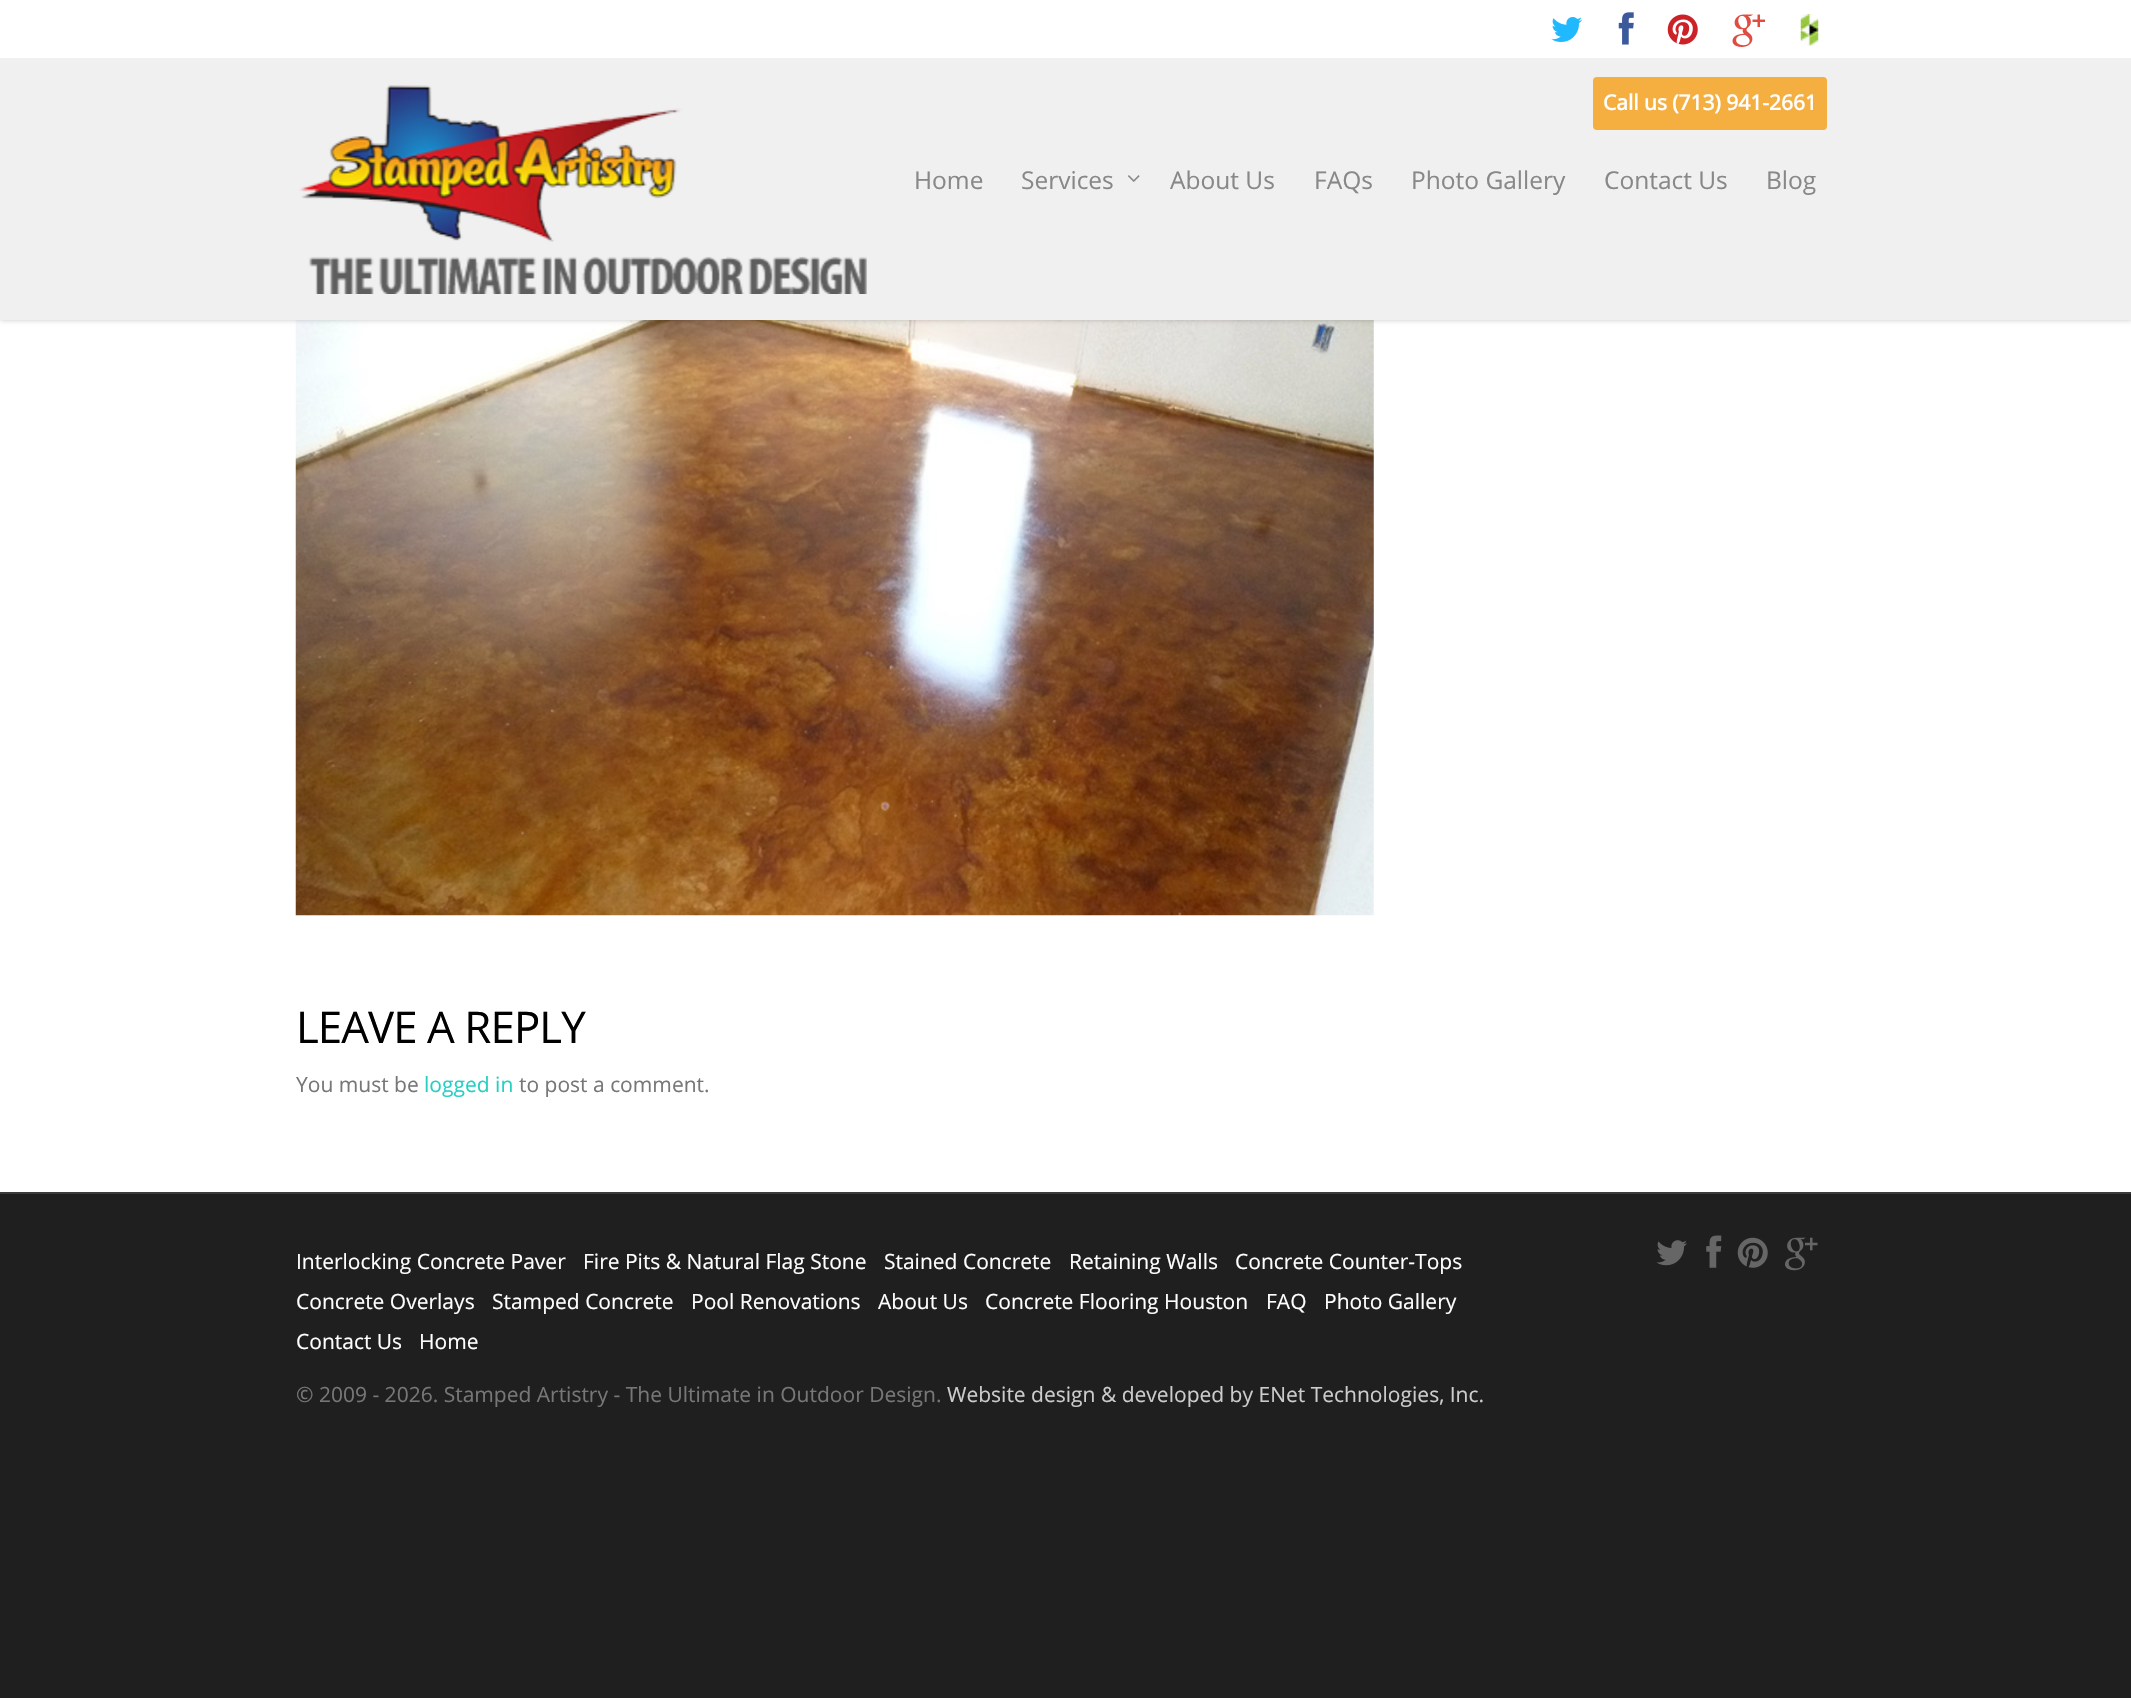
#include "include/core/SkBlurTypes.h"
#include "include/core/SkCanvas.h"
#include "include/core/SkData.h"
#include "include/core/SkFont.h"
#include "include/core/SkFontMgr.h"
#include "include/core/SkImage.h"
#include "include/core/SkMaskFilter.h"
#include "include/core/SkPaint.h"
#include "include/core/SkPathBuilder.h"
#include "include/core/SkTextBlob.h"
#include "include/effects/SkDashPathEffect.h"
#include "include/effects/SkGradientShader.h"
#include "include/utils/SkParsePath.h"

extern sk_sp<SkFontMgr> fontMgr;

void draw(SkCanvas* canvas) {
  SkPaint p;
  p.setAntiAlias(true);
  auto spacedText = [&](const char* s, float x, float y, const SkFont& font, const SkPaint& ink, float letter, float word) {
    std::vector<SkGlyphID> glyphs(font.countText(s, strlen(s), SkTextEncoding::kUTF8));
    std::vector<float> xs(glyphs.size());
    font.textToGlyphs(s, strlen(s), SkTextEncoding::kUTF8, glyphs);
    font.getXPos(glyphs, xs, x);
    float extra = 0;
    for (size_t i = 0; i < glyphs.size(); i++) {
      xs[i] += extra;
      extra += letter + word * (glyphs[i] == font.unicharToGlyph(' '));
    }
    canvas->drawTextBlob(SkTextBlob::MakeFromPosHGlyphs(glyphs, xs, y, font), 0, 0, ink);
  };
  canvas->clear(SkColorSetRGB(31, 31, 31));
  p.setColor(SK_ColorWHITE);
  canvas->drawRect(SkRect::MakeLTRB(0, 320, 2131, 1192), p);
  canvas->drawImageRect(SkImages::DeferredFromEncodedData(SkData::MakeFromFileName("images/8.png")), SkRect::MakeLTRB(295, 320, 1374, 916), SkSamplingOptions());
  p.setColor(SkColorSetARGB(56, 0, 0, 0));
  p.setMaskFilter(SkMaskFilter::MakeBlur(kNormal_SkBlurStyle, 2.5f));
  canvas->drawRect(SkRect::MakeLTRB(0, 58, 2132, 320), p);
  p.setMaskFilter(nullptr);
  p.setColor(SK_ColorWHITE);
  canvas->drawRect(SkRect::MakeLTRB(0, 0, 2131, 58), p);
  canvas->drawImageRect(SkImages::DeferredFromEncodedData(SkData::MakeFromFileName("images/1.png")), SkRect::MakeLTRB(1551, 17, 1582, 42), SkSamplingOptions());
  canvas->drawImageRect(SkImages::DeferredFromEncodedData(SkData::MakeFromFileName("images/2.png")), SkRect::MakeLTRB(1618, 12, 1634, 45), SkSamplingOptions());
  canvas->drawImageRect(SkImages::DeferredFromEncodedData(SkData::MakeFromFileName("images/3.png")), SkRect::MakeLTRB(1667, 14, 1698, 45), SkSamplingOptions());
  canvas->drawImageRect(SkImages::DeferredFromEncodedData(SkData::MakeFromFileName("images/4.png")), SkRect::MakeLTRB(1732, 14, 1765, 47), SkSamplingOptions());
  canvas->drawImageRect(SkImages::DeferredFromEncodedData(SkData::MakeFromFileName("images/5.png")), SkRect::MakeLTRB(1800, 14, 1819, 46), SkSamplingOptions());
  p.setColor(SkColorSetRGB(240, 240, 240));
  canvas->drawRect(SkRect::MakeLTRB(0, 58, 2131, 320), p);
  p.setColor(SkColorSetRGB(245, 175, 64));
  canvas->drawRoundRect(SkRect::MakeLTRB(1593, 77, 1827, 130), 4, 4, p);
  canvas->drawImageRect(SkImages::DeferredFromEncodedData(SkData::MakeFromFileName("images/6.png")), SkRect::MakeLTRB(299, 85, 867, 294), SkSamplingOptions());
  canvas->drawImageRect(SkImages::DeferredFromEncodedData(SkData::MakeFromFileName("images/7.png")), SkRect::MakeLTRB(1128, 175, 1140, 182), SkSamplingOptions());
  p.setColor(SkColorSetRGB(58, 58, 58));
  canvas->drawRect(SkRect::MakeLTRB(0, 1192, 2131, 1194), p);
  canvas->drawImageRect(SkImages::DeferredFromEncodedData(SkData::MakeFromFileName("images/9.png")), SkRect::MakeLTRB(1656, 1240, 1687, 1266), SkSamplingOptions());
  canvas->drawImageRect(SkImages::DeferredFromEncodedData(SkData::MakeFromFileName("images/10.png")), SkRect::MakeLTRB(1706, 1235, 1722, 1268), SkSamplingOptions());
  canvas->drawImageRect(SkImages::DeferredFromEncodedData(SkData::MakeFromFileName("images/11.png")), SkRect::MakeLTRB(1737, 1237, 1768, 1268), SkSamplingOptions());
  canvas->drawImageRect(SkImages::DeferredFromEncodedData(SkData::MakeFromFileName("images/12.png")), SkRect::MakeLTRB(1785, 1237, 1818, 1271), SkSamplingOptions());
  SkFont font1(fontMgr->matchFamilyStyle("Open Sans", SkFontStyle::Bold()), 21);
  font1.setSubpixel(true);
  p.setColor(SK_ColorWHITE);
  canvas->drawString("Call us (713) 941-2661", 1603, 110, font1, p);
  SkFont font2(fontMgr->matchFamilyStyle("Open Sans", SkFontStyle::Normal()), 24.5f);
  font2.setSubpixel(true);
  p.setColor(SkColorSetRGB(136, 136, 136));
  canvas->drawString("Home", 914, 189, font2, p);
  canvas->drawString("Services", 1021, 189, font2, p);
  canvas->drawString("About Us", 1170, 189, font2, p);
  canvas->drawString("FAQs", 1314, 189, font2, p);
  canvas->drawString("Photo Gallery", 1411, 189, font2, p);
  canvas->drawString("Contact Us", 1604, 189, font2, p);
  canvas->drawString("Blog", 1766, 189, font2, p);
  SkFont font3(fontMgr->matchFamilyStyle("Open Sans", SkFontStyle::Normal()), 43.75f);
  font3.setSubpixel(true);
  p.setColor(SK_ColorBLACK);
  spacedText("LEAVE A REPLY", 296, 1043, font3, p, -0.9f, 0);
  SkFont font4(fontMgr->matchFamilyStyle("Open Sans", SkFontStyle::Normal()), 21);
  font4.setSubpixel(true);
  p.setColor(SkColorSetRGB(119, 119, 119));
  canvas->drawString("You must be", 296, 1092, font4, p);
  p.setColor(SkColorSetRGB(39, 207, 195));
  canvas->drawString("logged in", 424, 1092, font4, p);
  p.setColor(SkColorSetRGB(119, 119, 119));
  canvas->drawString("to post a comment.", 519, 1092, font4, p);
  p.setColor(SK_ColorWHITE);
  canvas->drawString("Interlocking Concrete Paver", 296, 1269, font4, p);
  canvas->drawString("Fire Pits & Natural Flag Stone", 583, 1269, font4, p);
  canvas->drawString("Stained Concrete", 884, 1269, font4, p);
  canvas->drawString("Retaining Walls", 1069, 1269, font4, p);
  canvas->drawString("Concrete Counter-Tops", 1235, 1269, font4, p);
  canvas->drawString("Concrete Overlays", 296, 1309, font4, p);
  canvas->drawString("Stamped Concrete", 492, 1309, font4, p);
  canvas->drawString("Pool Renovations", 691, 1309, font4, p);
  canvas->drawString("About Us", 878, 1309, font4, p);
  canvas->drawString("Concrete Flooring Houston", 985, 1309, font4, p);
  canvas->drawString("FAQ", 1266, 1309, font4, p);
  canvas->drawString("Photo Gallery", 1324, 1309, font4, p);
  canvas->drawString("Contact Us", 296, 1349, font4, p);
  canvas->drawString("Home", 419, 1349, font4, p);
  p.setColor(SkColorSetRGB(119, 119, 119));
  canvas->drawString("© 2009 - 2026. Stamped Artistry - The Ultimate in Outdoor Design.", 296, 1402, font4, p);
  p.setColor(SkColorSetRGB(204, 204, 204));
  canvas->drawString("Website design & developed by ENet Technologies, Inc.", 947, 1402, font4, p);
}
